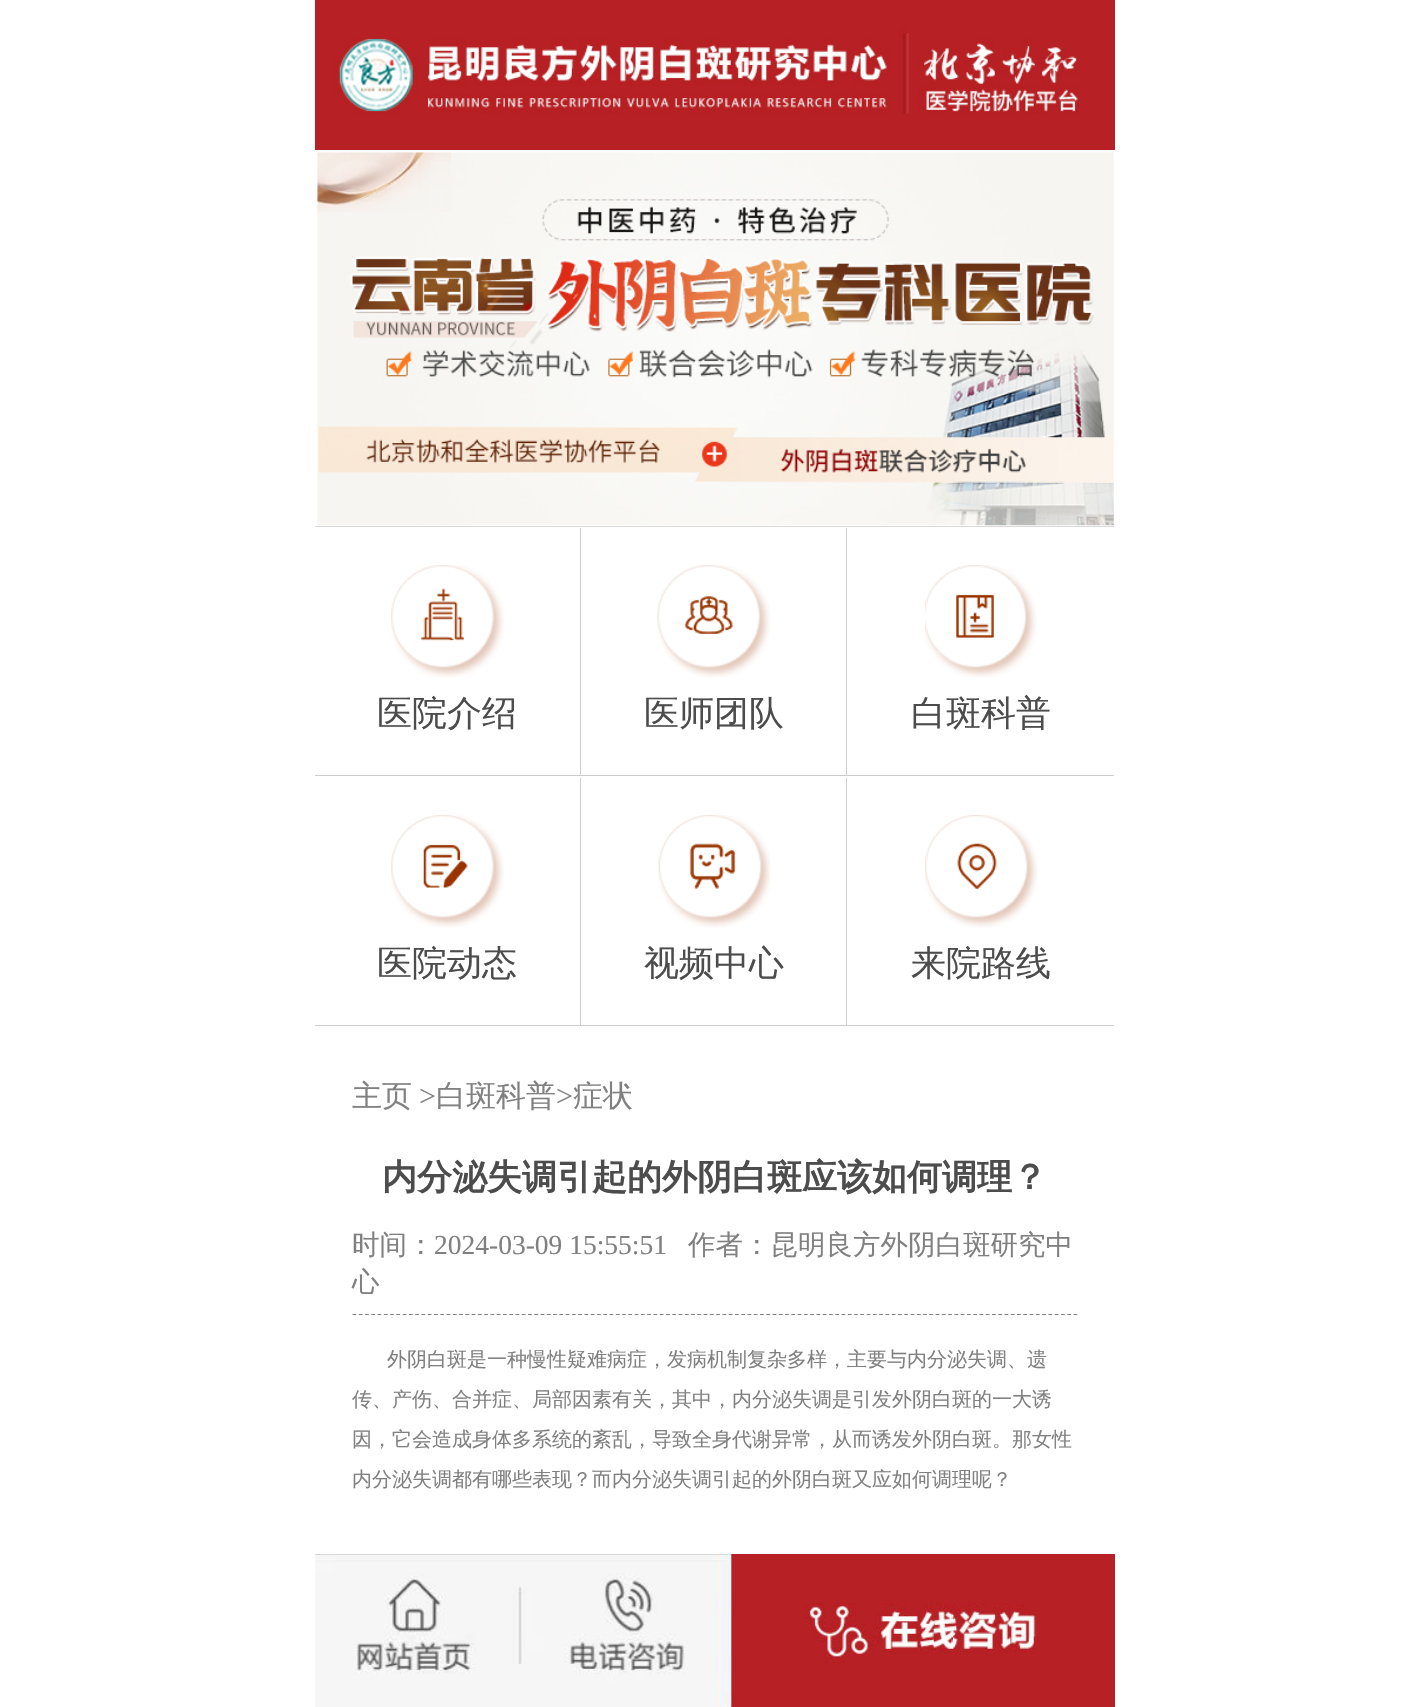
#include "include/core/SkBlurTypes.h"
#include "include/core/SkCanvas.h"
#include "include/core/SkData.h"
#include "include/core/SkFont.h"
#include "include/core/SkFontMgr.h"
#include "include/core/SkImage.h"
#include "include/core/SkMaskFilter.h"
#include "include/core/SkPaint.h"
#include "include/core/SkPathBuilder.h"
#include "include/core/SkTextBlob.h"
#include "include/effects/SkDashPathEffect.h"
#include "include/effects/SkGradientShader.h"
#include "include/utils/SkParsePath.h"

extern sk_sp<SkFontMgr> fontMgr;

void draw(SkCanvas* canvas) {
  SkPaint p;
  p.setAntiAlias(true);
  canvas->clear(SK_ColorWHITE);
  canvas->drawImageRect(SkImages::DeferredFromEncodedData(SkData::MakeFromFileName("images/1.png")), SkRect::MakeLTRB(315, 0, 1115, 150), SkSamplingOptions());
  p.setColor(SkColorSetRGB(204, 204, 204));
  canvas->drawRect(SkRect::MakeLTRB(315, 526, 1114, 527), p);
  canvas->drawImageRect(SkImages::DeferredFromEncodedData(SkData::MakeFromFileName("images/2.png")), SkRect::MakeLTRB(315, 152, 1114, 527), SkSamplingOptions());
  canvas->drawRect(SkRect::MakeLTRB(315, 775, 1114, 776), p);
  canvas->drawRect(SkRect::MakeLTRB(580, 528, 581, 775), p);
  canvas->drawImageRect(SkImages::DeferredFromEncodedData(SkData::MakeFromFileName("images/3.png")), SkRect::MakeLTRB(391, 565, 504, 678), SkSamplingOptions());
  canvas->drawRect(SkRect::MakeLTRB(846, 528, 847, 775), p);
  canvas->drawImageRect(SkImages::DeferredFromEncodedData(SkData::MakeFromFileName("images/4.png")), SkRect::MakeLTRB(657, 565, 770, 678), SkSamplingOptions());
  canvas->drawImageRect(SkImages::DeferredFromEncodedData(SkData::MakeFromFileName("images/5.png")), SkRect::MakeLTRB(925, 565, 1037, 678), SkSamplingOptions());
  canvas->drawRect(SkRect::MakeLTRB(315, 1025, 1114, 1026), p);
  canvas->drawRect(SkRect::MakeLTRB(580, 778, 581, 1025), p);
  canvas->drawImageRect(SkImages::DeferredFromEncodedData(SkData::MakeFromFileName("images/6.png")), SkRect::MakeLTRB(391, 815, 504, 928), SkSamplingOptions());
  canvas->drawRect(SkRect::MakeLTRB(846, 778, 847, 1025), p);
  canvas->drawImageRect(SkImages::DeferredFromEncodedData(SkData::MakeFromFileName("images/7.png")), SkRect::MakeLTRB(658, 815, 770, 928), SkSamplingOptions());
  canvas->drawImageRect(SkImages::DeferredFromEncodedData(SkData::MakeFromFileName("images/8.png")), SkRect::MakeLTRB(925, 815, 1038, 928), SkSamplingOptions());
  p.setStyle(SkPaint::kStroke_Style);
  p.setStrokeWidth(1.2f);
  p.setColor(SkColorSetRGB(128, 128, 128));
  p.setPathEffect(SkDashPathEffect::Make({{3.75f, 2.52f}}, 0));
  canvas->drawPath(SkPathBuilder().moveTo(352.5f, 1314.5f).lineTo(1077.5f, 1314.5f).detach(), p);
  p.setPathEffect(nullptr);
  canvas->drawImageRect(SkImages::DeferredFromEncodedData(SkData::MakeFromFileName("images/9.png")), SkRect::MakeLTRB(315, 1554, 1115, 1707), SkSamplingOptions());
  SkFont font1(fontMgr->matchFamilyStyle("WenQuanYi Zen Hei", SkFontStyle(500, SkFontStyle::kNormal_Width, SkFontStyle::kUpright_Slant)), 35);
  font1.setSubpixel(true);
  p.setStyle(SkPaint::kFill_Style);
  p.setColor(SkColorSetRGB(76, 76, 76));
  canvas->drawString("医院介绍", 377, 725, font1, p);
  canvas->drawString("医师团队", 644, 725, font1, p);
  canvas->drawString("白斑科普", 911, 725, font1, p);
  canvas->drawString("医院动态", 377, 975, font1, p);
  canvas->drawString("视频中心", 644, 975, font1, p);
  canvas->drawString("来院路线", 911, 975, font1, p);
  SkFont font2(fontMgr->matchFamilyStyle("WenQuanYi Zen Hei", SkFontStyle(500, SkFontStyle::kNormal_Width, SkFontStyle::kUpright_Slant)), 30);
  font2.setSubpixel(true);
  p.setColor(SkColorSetRGB(128, 128, 128));
  canvas->drawString("主页", 352, 1106, font2, p);
  SkFont font3(fontMgr->matchFamilyStyle("Liberation Serif", SkFontStyle::Normal()), 30);
  font3.setSubpixel(true);
  canvas->drawString(">", 419, 1106, font3, p);
  canvas->drawString("白斑科普", 436, 1106, font2, p);
  canvas->drawString(">", 556, 1106, font3, p);
  canvas->drawString("症状", 573, 1106, font2, p);
  SkFont font4(fontMgr->matchFamilyStyle("WenQuanYi Zen Hei", SkFontStyle::Bold()), 35);
  font4.setSubpixel(true);
  p.setColor(SkColorSetRGB(76, 76, 76));
  canvas->drawString("内分泌失调引起的外阴白斑应该如何调理？", 382, 1189, font4, p);
  SkFont font5(fontMgr->matchFamilyStyle("WenQuanYi Zen Hei", SkFontStyle(500, SkFontStyle::kNormal_Width, SkFontStyle::kUpright_Slant)), 27.5f);
  font5.setSubpixel(true);
  p.setColor(SkColorSetRGB(128, 128, 128));
  canvas->drawString("时间：", 352, 1254, font5, p);
  SkFont font6(fontMgr->matchFamilyStyle("Liberation Serif", SkFontStyle::Normal()), 27.5f);
  font6.setSubpixel(true);
  canvas->drawString("2024-03-09 15:55:51", 434, 1254, font6, p);
  canvas->drawString("作者：昆明良方外阴白斑研究中", 688, 1254, font5, p);
  canvas->drawString("心", 352, 1291, font5, p);
  SkFont font7(fontMgr->matchFamilyStyle("WenQuanYi Zen Hei", SkFontStyle(500, SkFontStyle::kNormal_Width, SkFontStyle::kUpright_Slant)), 20);
  font7.setSubpixel(true);
  canvas->drawString("外阴白斑是一种慢性疑难病症，发病机制复杂多样，主要与内分泌失调、遗", 387, 1366, font7, p);
  canvas->drawString("传、产伤、合并症、局部因素有关，其中，内分泌失调是引发外阴白斑的一大诱", 352, 1406, font7, p);
  canvas->drawString("因，它会造成身体多系统的紊乱，导致全身代谢异常，从而诱发外阴白斑。那女性", 352, 1446, font7, p);
  canvas->drawString("内分泌失调都有哪些表现？而内分泌失调引起的外阴白斑又应如何调理呢？", 352, 1486, font7, p);
}
